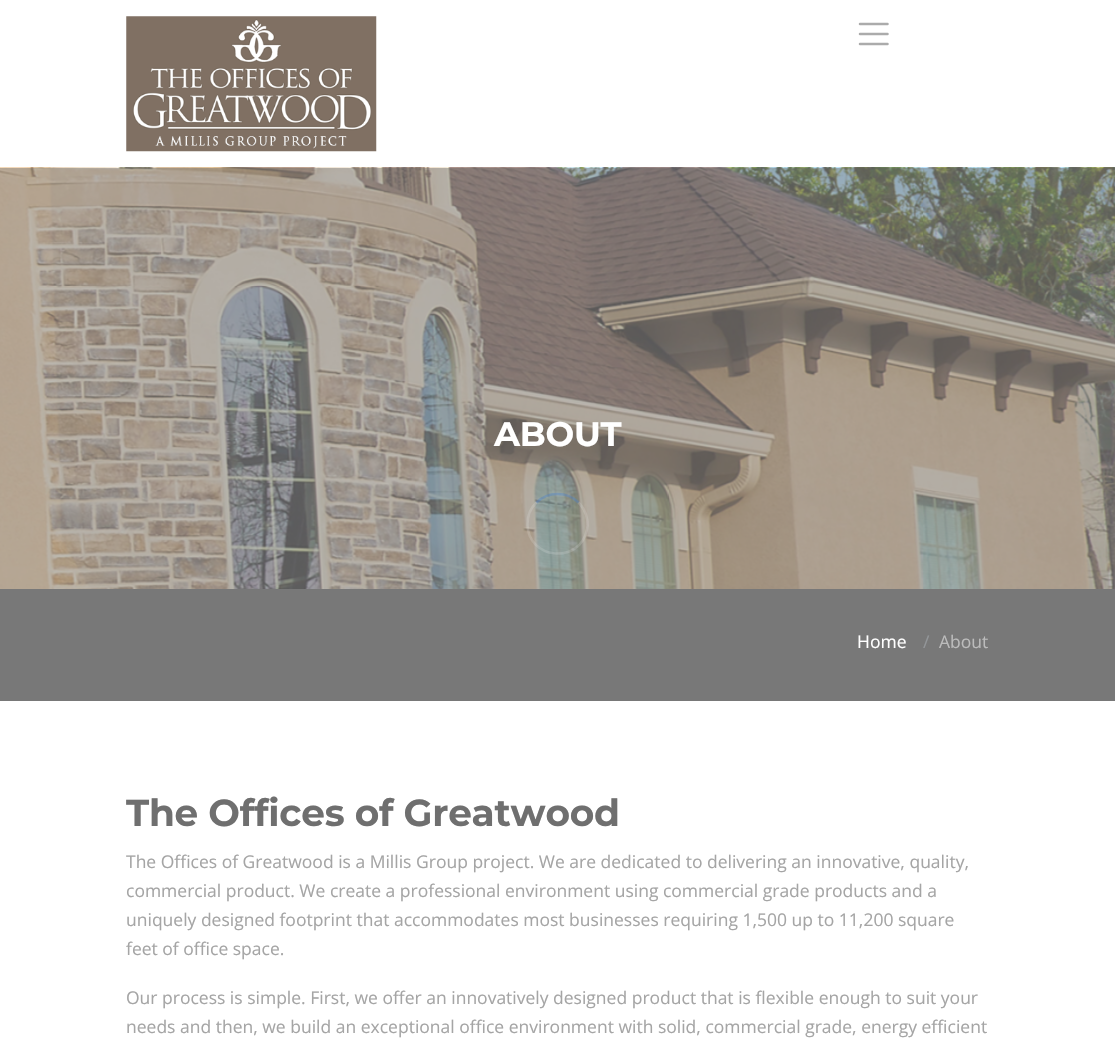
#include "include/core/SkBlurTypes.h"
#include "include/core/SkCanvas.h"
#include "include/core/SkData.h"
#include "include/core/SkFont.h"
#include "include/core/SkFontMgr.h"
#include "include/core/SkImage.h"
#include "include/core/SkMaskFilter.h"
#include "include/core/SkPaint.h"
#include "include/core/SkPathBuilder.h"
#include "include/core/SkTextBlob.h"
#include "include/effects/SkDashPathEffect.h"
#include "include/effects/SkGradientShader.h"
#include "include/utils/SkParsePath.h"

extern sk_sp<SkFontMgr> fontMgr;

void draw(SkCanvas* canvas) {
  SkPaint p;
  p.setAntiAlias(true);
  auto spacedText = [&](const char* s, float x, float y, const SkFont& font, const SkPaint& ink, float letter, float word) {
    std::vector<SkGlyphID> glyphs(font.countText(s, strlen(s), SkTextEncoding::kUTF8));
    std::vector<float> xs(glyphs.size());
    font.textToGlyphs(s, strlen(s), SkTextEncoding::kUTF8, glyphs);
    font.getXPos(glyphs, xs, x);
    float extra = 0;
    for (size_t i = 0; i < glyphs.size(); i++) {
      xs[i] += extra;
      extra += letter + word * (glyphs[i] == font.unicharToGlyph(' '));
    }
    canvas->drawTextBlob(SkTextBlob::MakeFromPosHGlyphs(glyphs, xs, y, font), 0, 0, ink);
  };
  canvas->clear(SK_ColorWHITE);
  canvas->drawImageRect(SkImages::DeferredFromEncodedData(SkData::MakeFromFileName("images/1.png")), SkRect::MakeLTRB(126, 16, 377, 152), SkSamplingOptions());
  p.setStyle(SkPaint::kStroke_Style);
  p.setStrokeWidth(2.5f);
  p.setStrokeCap(SkPaint::kRound_Cap);
  p.setColor(SkColorSetRGB(171, 171, 171));
  canvas->drawPath(SkPathBuilder().moveTo(860, 24).lineTo(887.5f, 24).moveTo(860, 34).lineTo(887.5f, 34).moveTo(860, 44).lineTo(887.5f, 44).detach(), p);
  canvas->drawImageRect(SkImages::DeferredFromEncodedData(SkData::MakeFromFileName("images/2.png")), SkRect::MakeLTRB(0, 167, 1115, 589), SkSamplingOptions());
  p.setStrokeCap(SkPaint::kButt_Cap);
  p.setColor(SkColorSetARGB(87, 71, 130, 211));
  canvas->drawPath(SkPathBuilder().moveTo(536.5f, 502.5f).cubicTo(548, 491, 567, 491, 578.5f, 502.5f).detach(), p);
  p.setColor(SkColorSetARGB(43, 245, 245, 245));
  canvas->drawPath(SkPathBuilder().moveTo(578.5f, 502.5f).cubicTo(585.5f, 509.5f, 589, 520, 587, 529.5f).cubicTo(580, 565, 527.5f, 559.5f, 527.5f, 524).cubicTo(527.5f, 516, 530.5f, 508, 536.5f, 502.5f).detach(), p);
  p.setStyle(SkPaint::kFill_Style);
  p.setColor(SkColorSetRGB(120, 120, 120));
  canvas->drawRect(SkRect::MakeLTRB(0, 589, 1115, 701), p);
  SkFont font1(fontMgr->matchFamilyStyle("Montserrat", SkFontStyle::Bold()), 34);
  font1.setSubpixel(true);
  p.setColor(SK_ColorWHITE);
  spacedText("ABOUT", 494, 446, font1, p, -0.25f, 0);
  SkFont font2(fontMgr->matchFamilyStyle("Open Sans", SkFontStyle::Normal()), 17.5f);
  font2.setSubpixel(true);
  canvas->drawString("Home", 857, 648, font2, p);
  p.setColor(SkColorSetRGB(147, 150, 153));
  canvas->drawString("/", 923, 648, font2, p);
  p.setColor(SkColorSetRGB(188, 188, 188));
  canvas->drawString("About", 939, 648, font2, p);
  SkFont font3(fontMgr->matchFamilyStyle("Montserrat", SkFontStyle::Bold()), 37.5f);
  font3.setSubpixel(true);
  p.setColor(SkColorSetRGB(111, 111, 111));
  spacedText("The Offices of Greatwood", 126, 826, font3, p, -0.25f, 0);
  p.setColor(SkColorSetRGB(165, 165, 165));
  canvas->drawString("The Offices of Greatwood is a Millis Group project. We are dedicated to delivering an innovative, quality,", 126, 868, font2, p);
  canvas->drawString("commercial product. We create a professional environment using commercial grade products and a", 126, 897, font2, p);
  canvas->drawString("uniquely designed footprint that accommodates most businesses requiring 1,500 up to 11,200 square", 126, 926, font2, p);
  canvas->drawString("feet of office space.", 126, 955, font2, p);
  canvas->drawString("Our process is simple. First, we offer an innovatively designed product that is flexible enough to suit your", 126, 1004, font2, p);
  canvas->drawString("needs and then, we build an exceptional office environment with solid, commercial grade, energy efficient", 126, 1033, font2, p);
}
